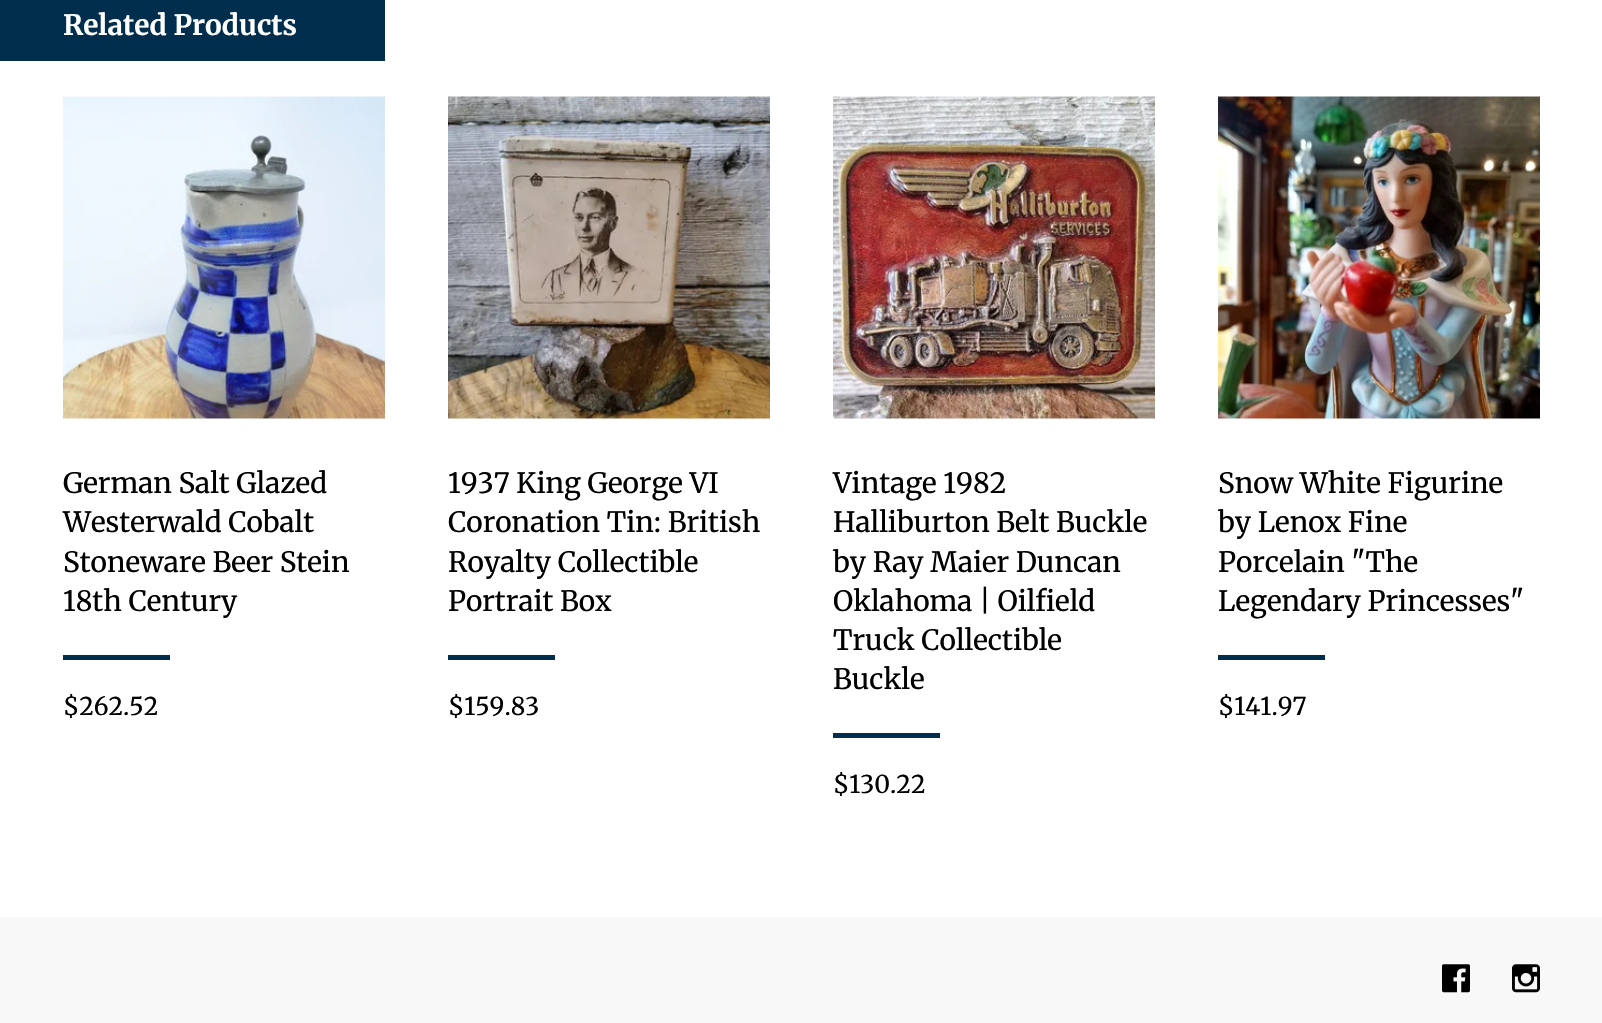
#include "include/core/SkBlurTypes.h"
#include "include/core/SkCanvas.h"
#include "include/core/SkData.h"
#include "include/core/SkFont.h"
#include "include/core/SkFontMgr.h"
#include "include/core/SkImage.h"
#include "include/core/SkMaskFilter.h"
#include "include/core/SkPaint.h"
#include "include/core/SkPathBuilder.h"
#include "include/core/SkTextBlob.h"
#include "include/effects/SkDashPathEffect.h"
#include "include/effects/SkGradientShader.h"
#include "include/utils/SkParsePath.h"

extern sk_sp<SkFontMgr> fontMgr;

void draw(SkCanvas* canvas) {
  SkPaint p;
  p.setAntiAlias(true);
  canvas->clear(SK_ColorWHITE);
  p.setColor(SkColorSetRGB(0, 46, 76));
  canvas->drawRect(SkRect::MakeLTRB(0, 0, 385, 61), p);
  canvas->drawImageRect(SkImages::DeferredFromEncodedData(SkData::MakeFromFileName("images/1.png")), SkRect::MakeLTRB(63, 96, 385, 419), SkSamplingOptions());
  canvas->drawRect(SkRect::MakeLTRB(63, 655, 170, 660), p);
  canvas->drawImageRect(SkImages::DeferredFromEncodedData(SkData::MakeFromFileName("images/2.png")), SkRect::MakeLTRB(448, 96, 770, 419), SkSamplingOptions());
  canvas->drawRect(SkRect::MakeLTRB(448, 655, 555, 660), p);
  canvas->drawImageRect(SkImages::DeferredFromEncodedData(SkData::MakeFromFileName("images/3.png")), SkRect::MakeLTRB(833, 96, 1155, 419), SkSamplingOptions());
  canvas->drawRect(SkRect::MakeLTRB(833, 733, 940, 738), p);
  canvas->drawImageRect(SkImages::DeferredFromEncodedData(SkData::MakeFromFileName("images/4.png")), SkRect::MakeLTRB(1218, 96, 1540, 419), SkSamplingOptions());
  canvas->drawRect(SkRect::MakeLTRB(1218, 655, 1325, 660), p);
  p.setColor(SkColorSetRGB(248, 248, 248));
  canvas->drawRect(SkRect::MakeLTRB(0, 917, 1602, 1023), p);
  canvas->drawImageRect(SkImages::DeferredFromEncodedData(SkData::MakeFromFileName("images/5.png")), SkRect::MakeLTRB(1442, 964, 1470, 993), SkSamplingOptions());
  canvas->drawImageRect(SkImages::DeferredFromEncodedData(SkData::MakeFromFileName("images/6.png")), SkRect::MakeLTRB(1512, 964, 1540, 993), SkSamplingOptions());
  SkFont font1(fontMgr->matchFamilyStyle("Merriweather", SkFontStyle::Bold()), 28);
  font1.setSubpixel(true);
  p.setColor(SK_ColorWHITE);
  canvas->drawString("Related Products", 63, 35, font1, p);
  SkFont font2(fontMgr->matchFamilyStyle("Merriweather", SkFontStyle::Normal()), 28);
  font2.setSubpixel(true);
  p.setColor(SK_ColorBLACK);
  canvas->drawString("German Salt Glazed", 63, 493, font2, p);
  canvas->drawString("Westerwald Cobalt", 63, 532, font2, p);
  canvas->drawString("Stoneware Beer Stein", 63, 572, font2, p);
  canvas->drawString("18th Century", 63, 611, font2, p);
  SkFont font3(fontMgr->matchFamilyStyle("Merriweather", SkFontStyle::Normal()), 24.5f);
  font3.setSubpixel(true);
  canvas->drawString("$262.52", 63, 715, font3, p);
  canvas->drawString("1937 King George VI", 448, 493, font2, p);
  canvas->drawString("Coronation Tin: British", 448, 532, font2, p);
  canvas->drawString("Royalty Collectible", 448, 572, font2, p);
  canvas->drawString("Portrait Box", 448, 611, font2, p);
  canvas->drawString("$159.83", 448, 715, font3, p);
  canvas->drawString("Vintage 1982", 833, 493, font2, p);
  canvas->drawString("Halliburton Belt Buckle", 833, 532, font2, p);
  canvas->drawString("by Ray Maier Duncan", 833, 572, font2, p);
  canvas->drawString("Oklahoma | Oilfield", 833, 611, font2, p);
  canvas->drawString("Truck Collectible", 833, 650, font2, p);
  canvas->drawString("Buckle", 833, 689, font2, p);
  canvas->drawString("$130.22", 833, 793, font3, p);
  canvas->drawString("Snow White Figurine", 1218, 493, font2, p);
  canvas->drawString("by Lenox Fine", 1218, 532, font2, p);
  canvas->drawString("Porcelain \"The", 1218, 572, font2, p);
  canvas->drawString("Legendary Princesses\"", 1218, 611, font2, p);
  canvas->drawString("$141.97", 1218, 715, font3, p);
}
